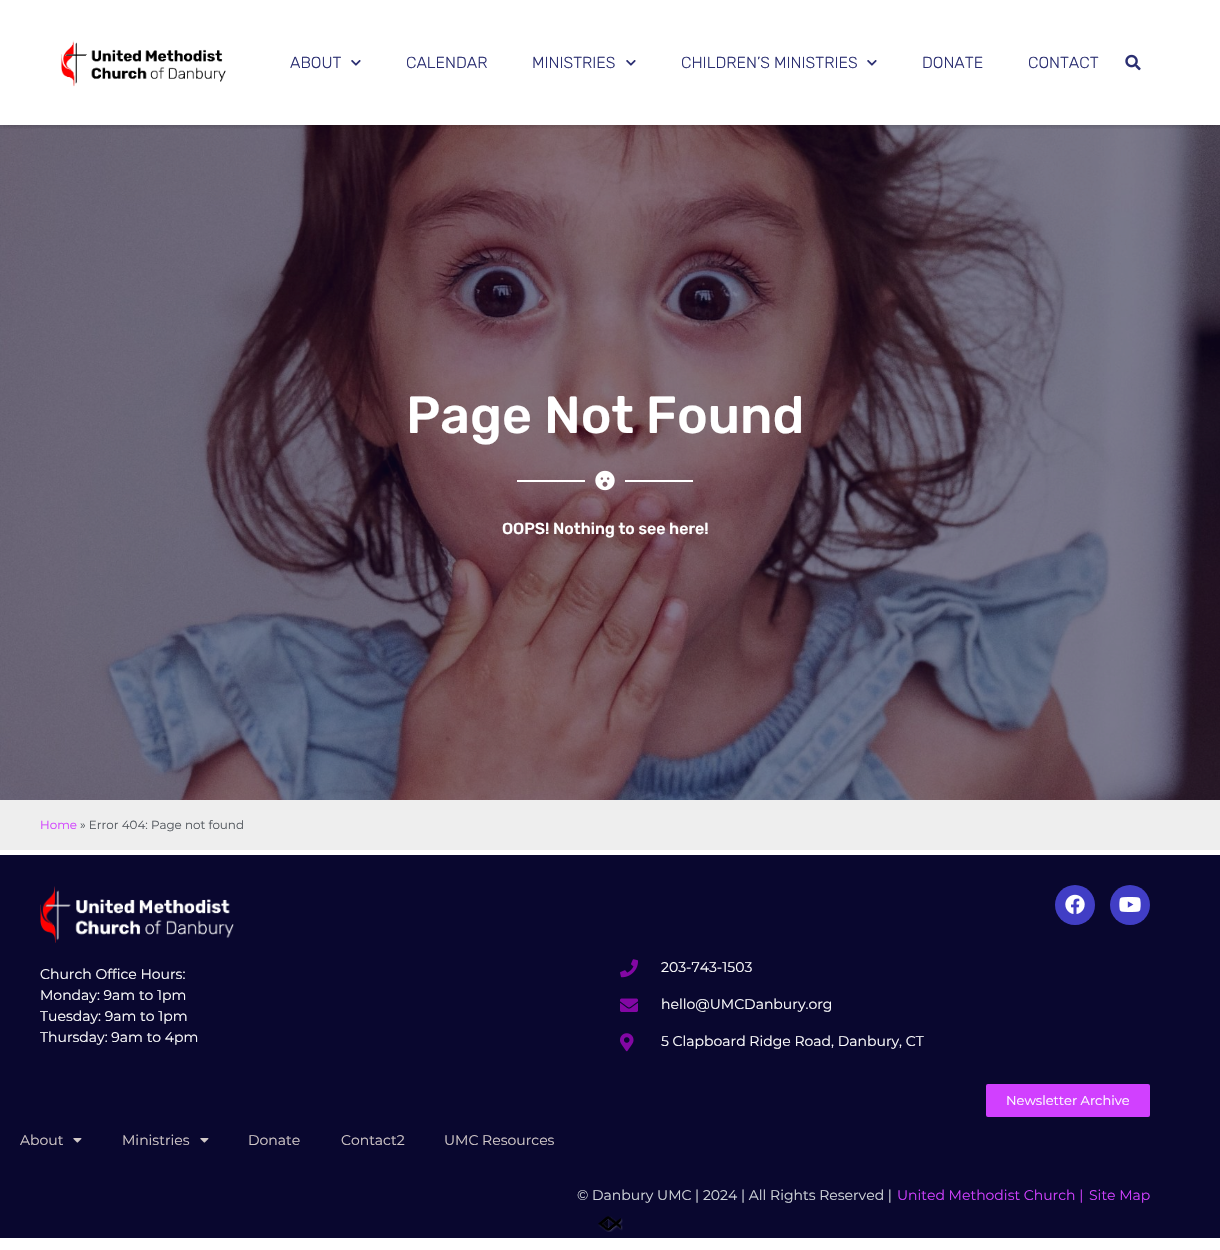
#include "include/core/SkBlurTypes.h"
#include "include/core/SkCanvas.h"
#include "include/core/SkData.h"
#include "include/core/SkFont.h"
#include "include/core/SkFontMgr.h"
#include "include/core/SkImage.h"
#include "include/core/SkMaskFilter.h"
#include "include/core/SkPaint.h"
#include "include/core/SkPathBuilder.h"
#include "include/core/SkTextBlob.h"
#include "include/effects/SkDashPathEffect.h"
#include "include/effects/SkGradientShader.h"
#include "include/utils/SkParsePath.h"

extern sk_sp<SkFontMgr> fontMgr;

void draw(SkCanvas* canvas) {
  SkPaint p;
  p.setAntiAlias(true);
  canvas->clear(SK_ColorWHITE);
  canvas->drawImageRect(SkImages::DeferredFromEncodedData(SkData::MakeFromFileName("images/4.png")), SkRect::MakeLTRB(0, 125, 1220, 800), SkSamplingOptions());
  canvas->save();
  canvas->clipRect(SkRect::MakeLTRB(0, 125, 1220, 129));
  p.setColor(SkColorSetARGB(77, 0, 0, 0));
  p.setMaskFilter(SkMaskFilter::MakeBlur(kNormal_SkBlurStyle, 3));
  canvas->drawRect(SkRect::MakeLTRB(0, 0, 1220, 125), p);
  p.setMaskFilter(nullptr);
  canvas->restore();
  canvas->drawImageRect(SkImages::DeferredFromEncodedData(SkData::MakeFromFileName("images/1.png")), SkRect::MakeLTRB(61, 40, 226, 87), SkSamplingOptions());
  canvas->drawImageRect(SkImages::DeferredFromEncodedData(SkData::MakeFromFileName("images/2.png")), SkRect::MakeLTRB(351, 60, 361, 66), SkSamplingOptions());
  canvas->drawImageRect(SkImages::DeferredFromEncodedData(SkData::MakeFromFileName("images/2.png")), SkRect::MakeLTRB(626, 60, 636, 66), SkSamplingOptions());
  canvas->drawImageRect(SkImages::DeferredFromEncodedData(SkData::MakeFromFileName("images/2.png")), SkRect::MakeLTRB(867, 60, 877, 66), SkSamplingOptions());
  canvas->drawImageRect(SkImages::DeferredFromEncodedData(SkData::MakeFromFileName("images/3.png")), SkRect::MakeLTRB(1125, 54, 1141, 71), SkSamplingOptions());
  p.setColor(SK_ColorWHITE);
  canvas->drawRect(SkRect::MakeLTRB(517, 480, 585, 482), p);
  canvas->drawImageRect(SkImages::DeferredFromEncodedData(SkData::MakeFromFileName("images/5.png")), SkRect::MakeLTRB(595, 470, 615, 491), SkSamplingOptions());
  canvas->drawRect(SkRect::MakeLTRB(625, 480, 693, 482), p);
  p.setColor(SkColorSetRGB(238, 238, 238));
  canvas->drawRect(SkRect::MakeLTRB(0, 800, 1220, 850), p);
  p.setColor(SkColorSetRGB(9, 7, 47));
  canvas->drawRect(SkRect::MakeLTRB(0, 855, 1220, 1238), p);
  canvas->drawImageRect(SkImages::DeferredFromEncodedData(SkData::MakeFromFileName("images/6.png")), SkRect::MakeLTRB(40, 886, 234, 943), SkSamplingOptions());
  p.setColor(SkColorSetRGB(65, 62, 197));
  canvas->drawCircle(1075, 905, 20, p);
  canvas->drawImageRect(SkImages::DeferredFromEncodedData(SkData::MakeFromFileName("images/7.png")), SkRect::MakeLTRB(1065, 894, 1085, 914), SkSamplingOptions());
  canvas->drawCircle(1130, 905, 20, p);
  canvas->drawImageRect(SkImages::DeferredFromEncodedData(SkData::MakeFromFileName("images/8.png")), SkRect::MakeLTRB(1119, 897, 1141, 912), SkSamplingOptions());
  canvas->drawImageRect(SkImages::DeferredFromEncodedData(SkData::MakeFromFileName("images/9.png")), SkRect::MakeLTRB(620, 959, 638, 978), SkSamplingOptions());
  canvas->drawImageRect(SkImages::DeferredFromEncodedData(SkData::MakeFromFileName("images/10.png")), SkRect::MakeLTRB(620, 998, 638, 1012), SkSamplingOptions());
  canvas->drawImageRect(SkImages::DeferredFromEncodedData(SkData::MakeFromFileName("images/11.png")), SkRect::MakeLTRB(620, 1033, 634, 1052), SkSamplingOptions());
  p.setColor(SkColorSetRGB(209, 64, 255));
  canvas->drawRoundRect(SkRect::MakeLTRB(986, 1084, 1150, 1117), 2, 2, p);
  canvas->drawImageRect(SkImages::DeferredFromEncodedData(SkData::MakeFromFileName("images/12.png")), SkRect::MakeLTRB(73, 1138, 82, 1143), SkSamplingOptions());
  canvas->drawImageRect(SkImages::DeferredFromEncodedData(SkData::MakeFromFileName("images/12.png")), SkRect::MakeLTRB(200, 1138, 209, 1143), SkSamplingOptions());
  canvas->drawImageRect(SkImages::DeferredFromEncodedData(SkData::MakeFromFileName("images/13.png")), SkRect::MakeLTRB(598, 1216, 623, 1232), SkSamplingOptions());
  SkFont font1(fontMgr->matchFamilyStyle("Rubik", SkFontStyle(300, SkFontStyle::kNormal_Width, SkFontStyle::kUpright_Slant)), 16);
  font1.setSubpixel(true);
  p.setColor(SkColorSetRGB(42, 46, 113));
  canvas->drawString("ABOUT", 290, 68, font1, p);
  canvas->drawString("CALENDAR", 406, 68, font1, p);
  canvas->drawString("MINISTRIES", 532, 68, font1, p);
  canvas->drawString("CHILDREN’S MINISTRIES", 681, 68, font1, p);
  canvas->drawString("DONATE", 922, 68, font1, p);
  canvas->drawString("CONTACT", 1028, 68, font1, p);
  SkFont font2(fontMgr->matchFamilyStyle("Rubik", SkFontStyle(500, SkFontStyle::kNormal_Width, SkFontStyle::kUpright_Slant)), 52);
  font2.setSubpixel(true);
  p.setColor(SK_ColorWHITE);
  canvas->drawString("Page Not Found", 406, 433, font2, p);
  SkFont font3(fontMgr->matchFamilyStyle("Rubik", SkFontStyle(500, SkFontStyle::kNormal_Width, SkFontStyle::kUpright_Slant)), 16);
  font3.setSubpixel(true);
  canvas->drawString("OOPS! Nothing to see here!", 502, 534, font3, p);
  SkFont font4(fontMgr->matchFamilyStyle("Montserrat", SkFontStyle::Normal()), 11.9f);
  font4.setSubpixel(true);
  p.setColor(SkColorSetRGB(209, 64, 255));
  canvas->drawString("Home", 40, 829, font4, p);
  p.setColor(SkColorSetRGB(84, 89, 95));
  canvas->drawString("» Error 404: Page not found", 80, 829, font4, p);
  SkFont font5(fontMgr->matchFamilyStyle("Montserrat", SkFontStyle::Normal()), 14);
  font5.setSubpixel(true);
  p.setColor(SK_ColorWHITE);
  canvas->drawString("Church Office Hours:", 40, 979, font5, p);
  canvas->drawString("Monday: 9am to 1pm", 40, 1000, font5, p);
  canvas->drawString("Tuesday: 9am to 1pm", 40, 1021, font5, p);
  canvas->drawString("Thursday: 9am to 4pm", 40, 1042, font5, p);
  canvas->drawString("203-743-1503", 661, 972, font5, p);
  canvas->drawString("hello@UMCDanbury.org", 661, 1009, font5, p);
  canvas->drawString("5 Clapboard Ridge Road, Danbury, CT", 661, 1046, font5, p);
  SkFont font6(fontMgr->matchFamilyStyle("Montserrat", SkFontStyle::Normal()), 13);
  font6.setSubpixel(true);
  canvas->drawString("Newsletter Archive", 1006, 1105, font6, p);
  p.setColor(SkColorSetRGB(209, 200, 200));
  canvas->drawString("About", 20, 1145, font5, p);
  canvas->drawString("Ministries", 122, 1145, font5, p);
  canvas->drawString("Donate", 248, 1145, font5, p);
  canvas->drawString("Contact2", 341, 1145, font5, p);
  canvas->drawString("UMC Resources", 444, 1145, font5, p);
  p.setColor(SkColorSetRGB(207, 212, 217));
  canvas->drawString("© Danbury UMC | 2024 | All Rights Reserved |", 577, 1200, font5, p);
  p.setColor(SkColorSetRGB(209, 64, 255));
  canvas->drawString("United Methodist Church |", 897, 1200, font5, p);
  canvas->drawString("Site Map", 1089, 1200, font5, p);
}
